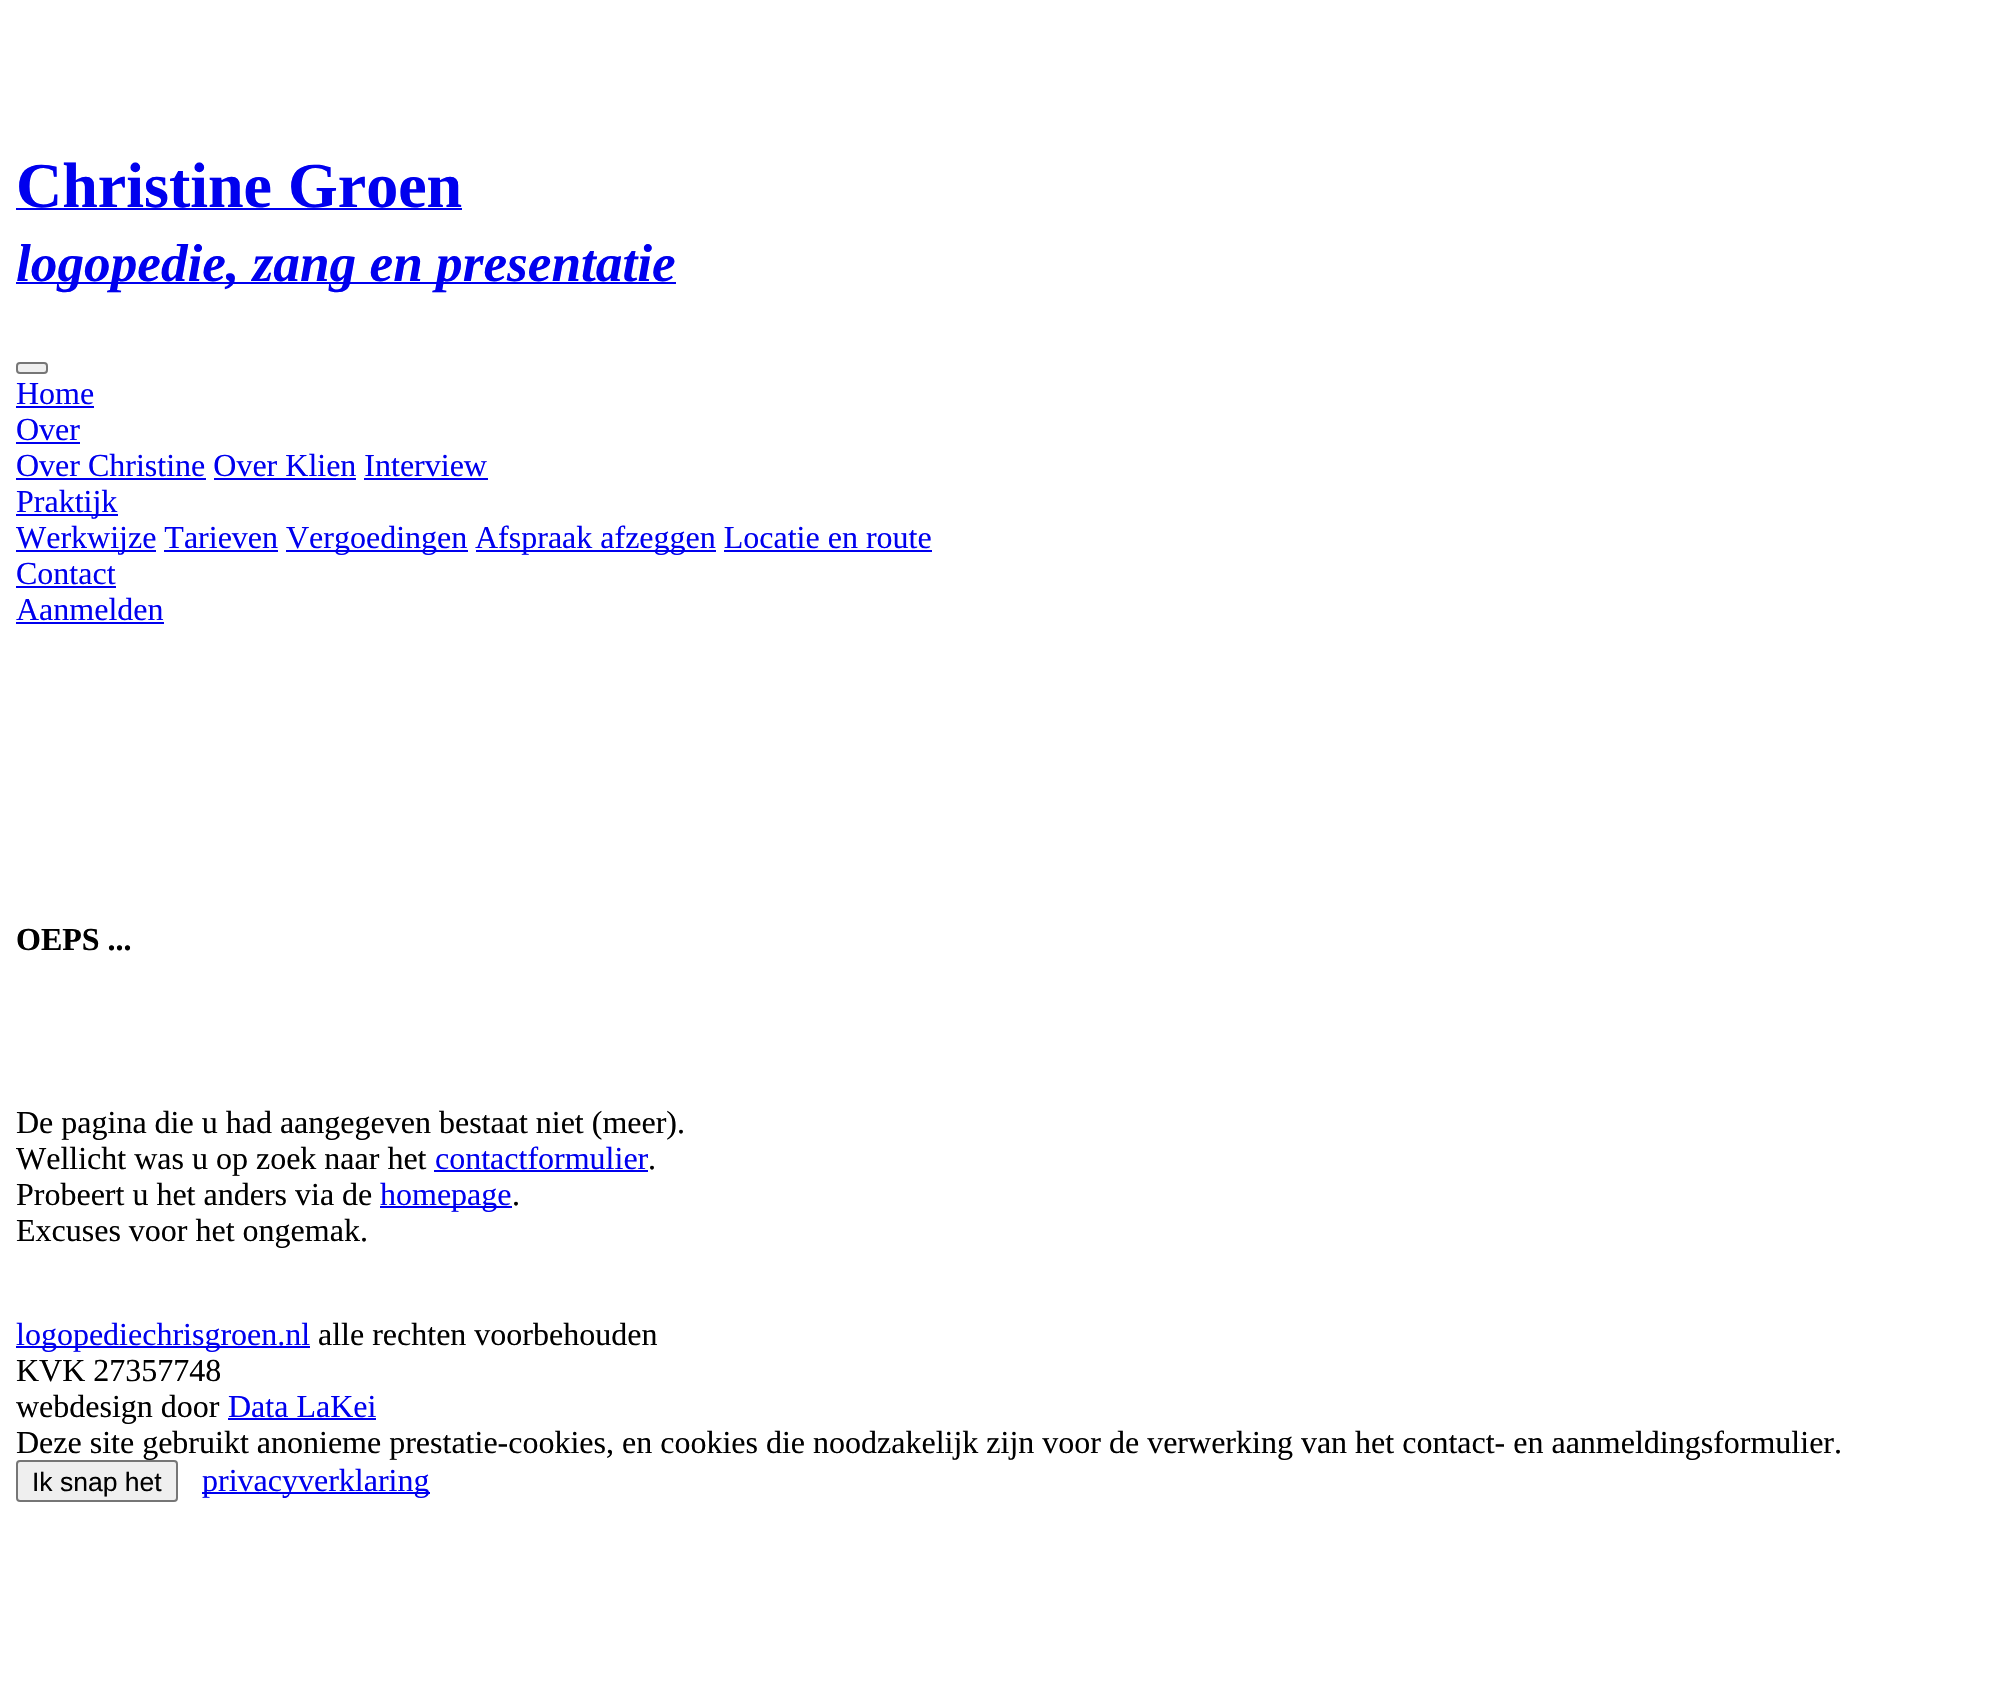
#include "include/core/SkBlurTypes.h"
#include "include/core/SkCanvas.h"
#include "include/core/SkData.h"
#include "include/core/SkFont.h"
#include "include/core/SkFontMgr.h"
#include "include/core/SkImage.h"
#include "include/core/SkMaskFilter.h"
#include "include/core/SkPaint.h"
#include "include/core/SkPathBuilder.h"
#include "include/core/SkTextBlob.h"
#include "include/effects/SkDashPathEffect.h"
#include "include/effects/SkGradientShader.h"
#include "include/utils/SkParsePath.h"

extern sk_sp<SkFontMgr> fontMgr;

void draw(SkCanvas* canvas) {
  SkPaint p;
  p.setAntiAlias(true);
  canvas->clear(SK_ColorWHITE);
  p.setColor(SkColorSetRGB(0, 0, 238));
  canvas->drawRect(SkRect::MakeLTRB(16, 208, 462, 210), p);
  canvas->drawRect(SkRect::MakeLTRB(16, 282, 676, 284), p);
  p.setColor(SkColorSetRGB(239, 239, 239));
  canvas->drawRoundRect(SkRect::MakeLTRB(17, 363, 47, 373), 3, 3, p);
  p.setStyle(SkPaint::kStroke_Style);
  p.setStrokeWidth(2);
  p.setColor(SkColorSetRGB(118, 118, 118));
  canvas->drawRoundRect(SkRect::MakeLTRB(17, 363, 47, 373), 3, 3, p);
  p.setStyle(SkPaint::kFill_Style);
  p.setColor(SkColorSetRGB(0, 0, 238));
  canvas->drawRect(SkRect::MakeLTRB(16, 406, 94, 408), p);
  canvas->drawRect(SkRect::MakeLTRB(16, 442, 80, 444), p);
  canvas->drawRect(SkRect::MakeLTRB(16, 478, 206, 480), p);
  canvas->drawRect(SkRect::MakeLTRB(214, 478, 356, 480), p);
  canvas->drawRect(SkRect::MakeLTRB(364, 478, 488, 480), p);
  canvas->drawRect(SkRect::MakeLTRB(16, 514, 118, 516), p);
  canvas->drawRect(SkRect::MakeLTRB(16, 550, 156, 552), p);
  canvas->drawRect(SkRect::MakeLTRB(286, 550, 468, 552), p);
  canvas->drawRect(SkRect::MakeLTRB(476, 550, 716, 552), p);
  canvas->drawRect(SkRect::MakeLTRB(164, 550, 278, 552), p);
  canvas->drawRect(SkRect::MakeLTRB(724, 550, 932, 552), p);
  canvas->drawRect(SkRect::MakeLTRB(16, 586, 116, 588), p);
  canvas->drawRect(SkRect::MakeLTRB(16, 622, 164, 624), p);
  canvas->drawRect(SkRect::MakeLTRB(434, 1170, 648, 1172), p);
  canvas->drawRect(SkRect::MakeLTRB(380, 1206, 512, 1208), p);
  canvas->drawRect(SkRect::MakeLTRB(16, 1346, 310, 1348), p);
  canvas->drawRect(SkRect::MakeLTRB(228, 1418, 376, 1420), p);
  p.setColor(SkColorSetRGB(239, 239, 239));
  canvas->drawRoundRect(SkRect::MakeLTRB(17, 1461, 177, 1501), 3, 3, p);
  p.setStyle(SkPaint::kStroke_Style);
  p.setColor(SkColorSetRGB(118, 118, 118));
  canvas->drawRoundRect(SkRect::MakeLTRB(17, 1461, 177, 1501), 3, 3, p);
  p.setStyle(SkPaint::kFill_Style);
  p.setColor(SkColorSetRGB(0, 0, 238));
  canvas->drawRect(SkRect::MakeLTRB(202, 1492, 430, 1494), p);
  SkFont font1(fontMgr->matchFamilyStyle("Liberation Serif", SkFontStyle::Bold()), 64);
  font1.setSubpixel(true);
  canvas->drawString("Christine Groen", 16, 207, font1, p);
  SkFont font2(fontMgr->matchFamilyStyle("Liberation Serif", SkFontStyle::BoldItalic()), 53.25f);
  font2.setSubpixel(true);
  canvas->drawString("logopedie, zang en presentatie", 16, 281, font2, p);
  SkFont font3(fontMgr->matchFamilyStyle("Liberation Serif", SkFontStyle::Normal()), 32);
  font3.setSubpixel(true);
  canvas->drawString("Home", 16, 404, font3, p);
  canvas->drawString("Over", 16, 440, font3, p);
  canvas->drawString("Over Christine Over Klien Interview", 16, 476, font3, p);
  canvas->drawString("Praktijk", 16, 512, font3, p);
  canvas->drawString("Werkwijze Tarieven", 16, 548, font3, p);
  canvas->drawString("Vergoedingen", 286, 548, font3, p);
  canvas->drawString("Afspraak afzeggen Locatie en route", 475, 548, font3, p);
  canvas->drawString("Contact", 16, 584, font3, p);
  canvas->drawString("Aanmelden", 16, 620, font3, p);
  SkFont font4(fontMgr->matchFamilyStyle("Liberation Serif", SkFontStyle::Bold()), 32);
  font4.setSubpixel(true);
  p.setColor(SK_ColorBLACK);
  canvas->drawString("OEPS ...", 16, 950, font4, p);
  canvas->drawString("De pagina die u had aangegeven bestaat niet (meer).", 16, 1133, font3, p);
  canvas->drawString("Wellicht was u op zoek naar het", 16, 1169, font3, p);
  p.setColor(SkColorSetRGB(0, 0, 238));
  canvas->drawString("contactformulier", 435, 1169, font3, p);
  p.setColor(SK_ColorBLACK);
  canvas->drawString(".", 648, 1169, font3, p);
  canvas->drawString("Probeert u het anders via de", 16, 1205, font3, p);
  p.setColor(SkColorSetRGB(0, 0, 238));
  canvas->drawString("homepage", 380, 1205, font3, p);
  p.setColor(SK_ColorBLACK);
  canvas->drawString(".", 512, 1205, font3, p);
  canvas->drawString("Excuses voor het ongemak.", 16, 1241, font3, p);
  p.setColor(SkColorSetRGB(0, 0, 238));
  canvas->drawString("logopediechrisgroen.nl", 16, 1345, font3, p);
  p.setColor(SK_ColorBLACK);
  canvas->drawString("alle rechten voorbehouden", 318, 1345, font3, p);
  canvas->drawString("KVK 27357748", 16, 1381, font3, p);
  canvas->drawString("webdesign door", 16, 1417, font3, p);
  p.setColor(SkColorSetRGB(0, 0, 238));
  canvas->drawString("Data LaKei", 228, 1417, font3, p);
  p.setColor(SK_ColorBLACK);
  canvas->drawString("Deze site gebruikt anonieme prestatie-cookies, en cookies die noodzakelijk zijn voor de verwerking van het contact- en aanmeldingsformulier.", 16, 1453, font3, p);
  SkFont font5(fontMgr->matchFamilyStyle("Liberation Sans", SkFontStyle::Normal()), 26.5f);
  font5.setSubpixel(true);
  canvas->drawString("Ik snap het", 32, 1491, font5, p);
  p.setColor(SkColorSetRGB(0, 0, 238));
  canvas->drawString("privacyverklaring", 202, 1491, font3, p);
}
